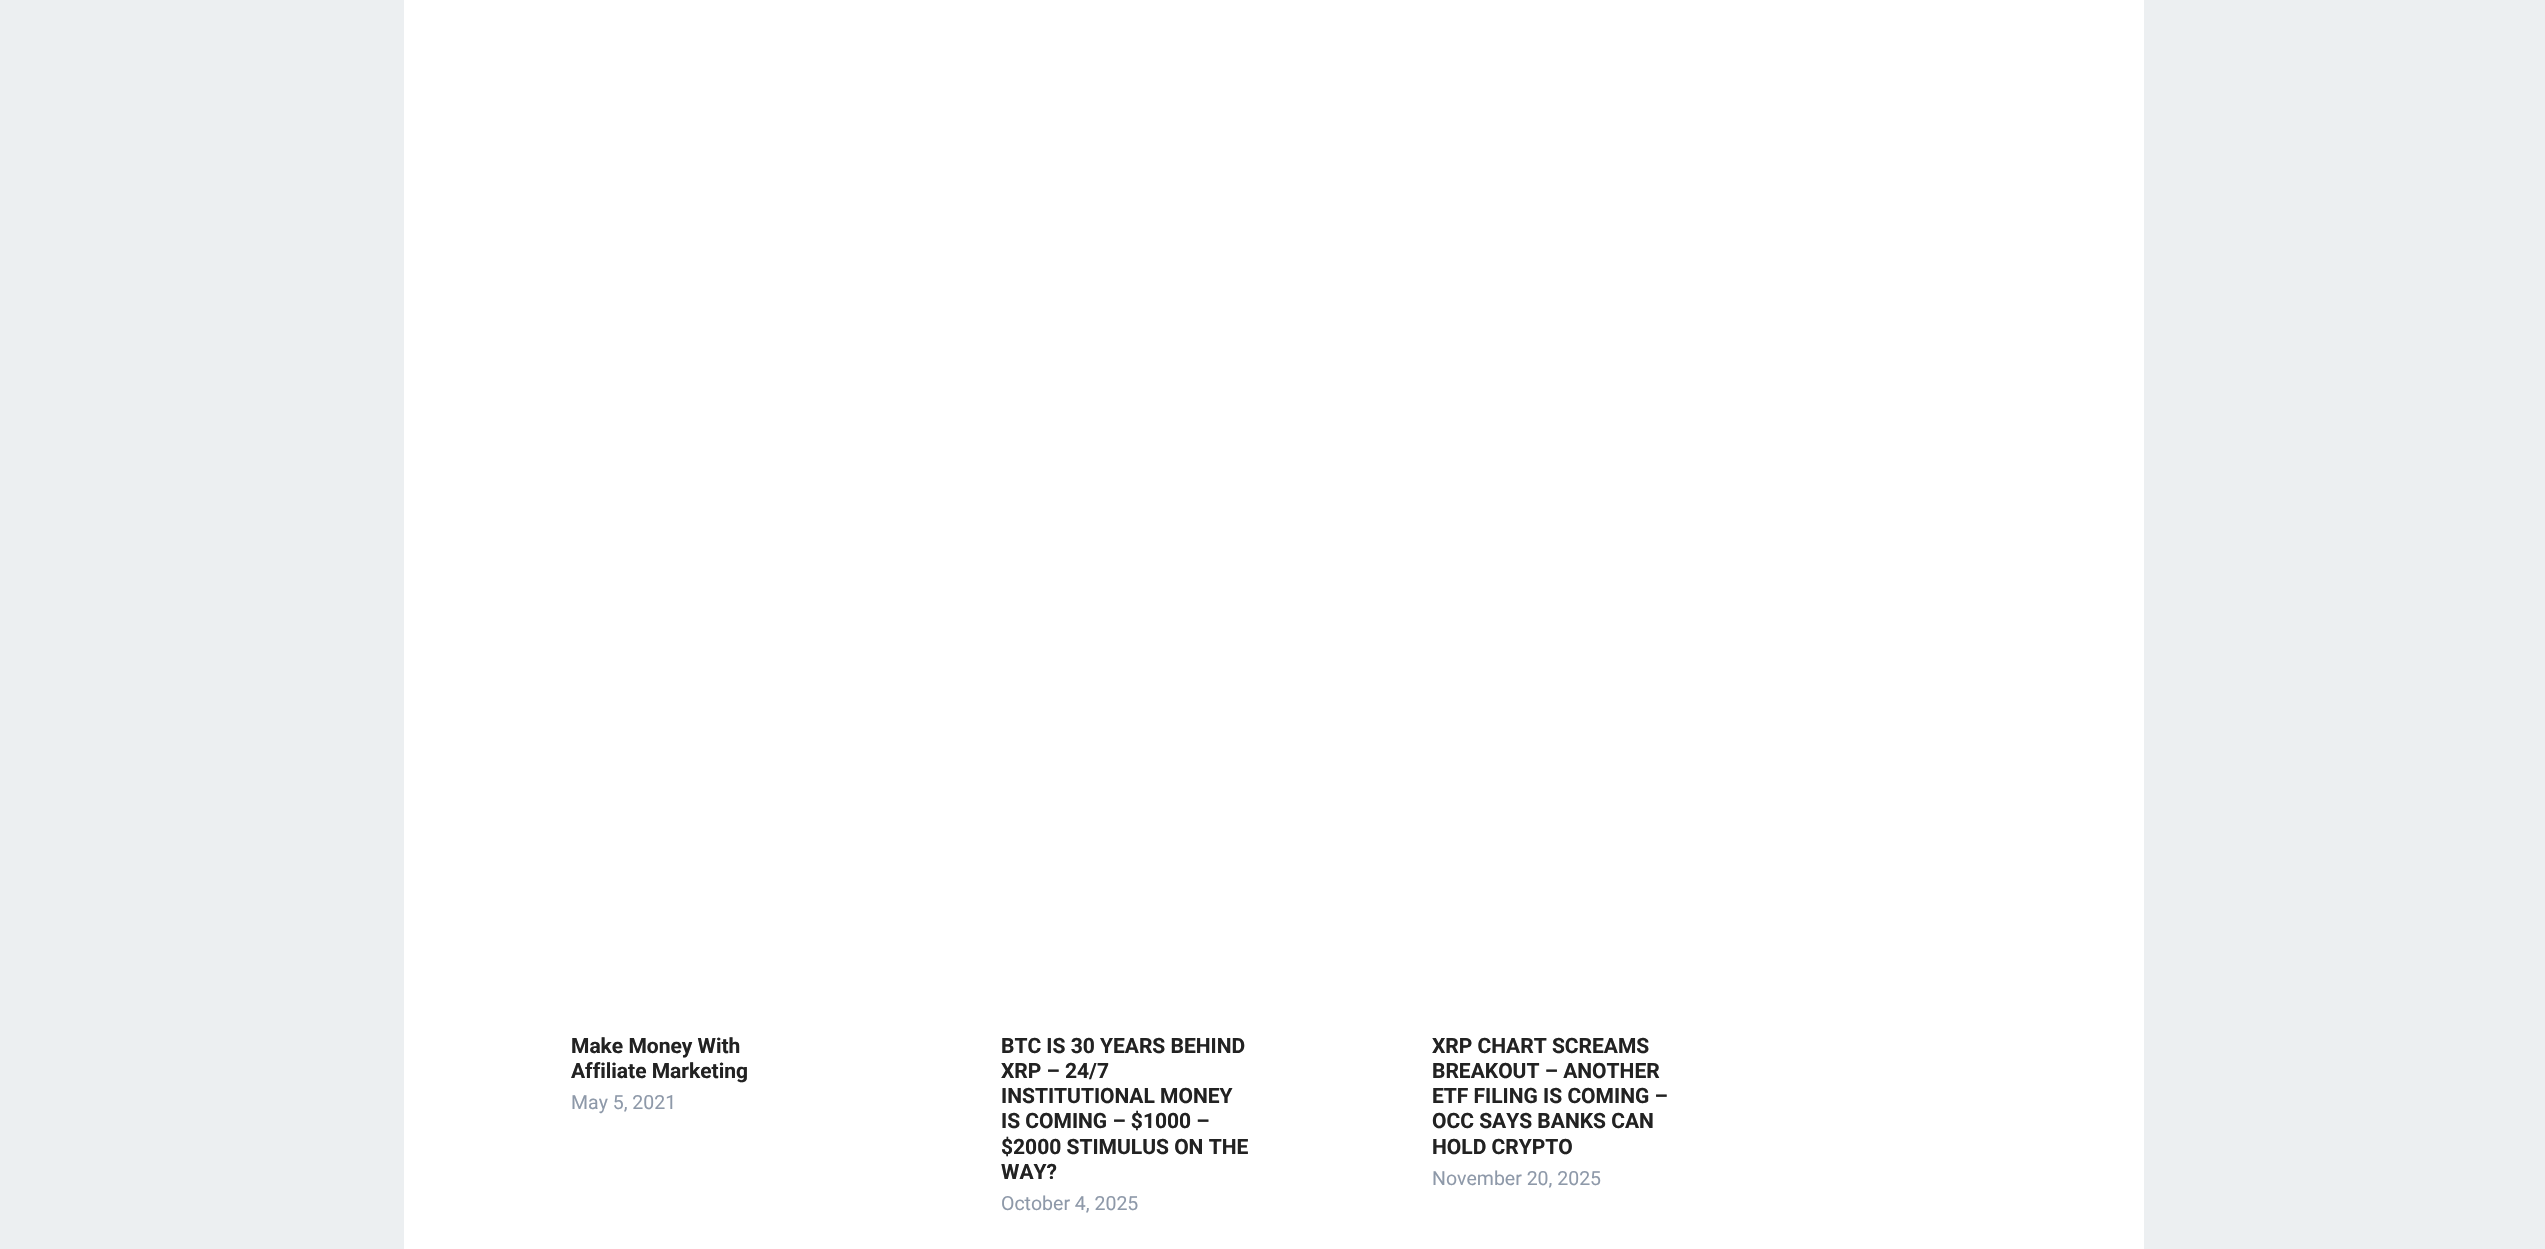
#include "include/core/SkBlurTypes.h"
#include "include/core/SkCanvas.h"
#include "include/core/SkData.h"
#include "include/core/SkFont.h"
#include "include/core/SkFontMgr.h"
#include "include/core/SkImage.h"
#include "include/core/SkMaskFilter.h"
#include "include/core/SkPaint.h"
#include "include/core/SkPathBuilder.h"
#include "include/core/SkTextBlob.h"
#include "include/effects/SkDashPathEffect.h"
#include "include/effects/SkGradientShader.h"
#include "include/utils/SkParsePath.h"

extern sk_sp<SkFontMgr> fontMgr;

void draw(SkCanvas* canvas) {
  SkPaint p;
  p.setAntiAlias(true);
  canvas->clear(SkColorSetRGB(236, 239, 241));
  p.setColor(SK_ColorWHITE);
  canvas->drawRect(SkRect::MakeLTRB(404, 0, 2144, 1249), p);
  SkFont font1(fontMgr->matchFamilyStyle("Roboto", SkFontStyle::Bold()), 21);
  font1.setSubpixel(true);
  p.setColor(SkColorSetRGB(34, 34, 34));
  canvas->drawString("Make Money With", 571, 1053, font1, p);
  canvas->drawString("Affiliate Marketing", 571, 1078, font1, p);
  SkFont font2(fontMgr->matchFamilyStyle("Roboto", SkFontStyle::Normal()), 19.5f);
  font2.setSubpixel(true);
  p.setColor(SkColorSetRGB(142, 153, 169));
  canvas->drawString("May 5, 2021", 571, 1109, font2, p);
  p.setColor(SkColorSetRGB(34, 34, 34));
  canvas->drawString("BTC IS 30 YEARS BEHIND", 1001, 1053, font1, p);
  canvas->drawString("XRP – 24/7", 1001, 1078, font1, p);
  canvas->drawString("INSTITUTIONAL MONEY", 1001, 1103, font1, p);
  canvas->drawString("IS COMING – $1000 –", 1001, 1128, font1, p);
  canvas->drawString("$2000 STIMULUS ON THE", 1001, 1154, font1, p);
  canvas->drawString("WAY?", 1001, 1179, font1, p);
  p.setColor(SkColorSetRGB(142, 153, 169));
  canvas->drawString("October 4, 2025", 1001, 1210, font2, p);
  p.setColor(SkColorSetRGB(34, 34, 34));
  canvas->drawString("XRP CHART SCREAMS", 1432, 1053, font1, p);
  canvas->drawString("BREAKOUT – ANOTHER", 1432, 1078, font1, p);
  canvas->drawString("ETF FILING IS COMING –", 1432, 1103, font1, p);
  canvas->drawString("OCC SAYS BANKS CAN", 1432, 1128, font1, p);
  canvas->drawString("HOLD CRYPTO", 1432, 1154, font1, p);
  p.setColor(SkColorSetRGB(142, 153, 169));
  canvas->drawString("November 20, 2025", 1432, 1185, font2, p);
}
